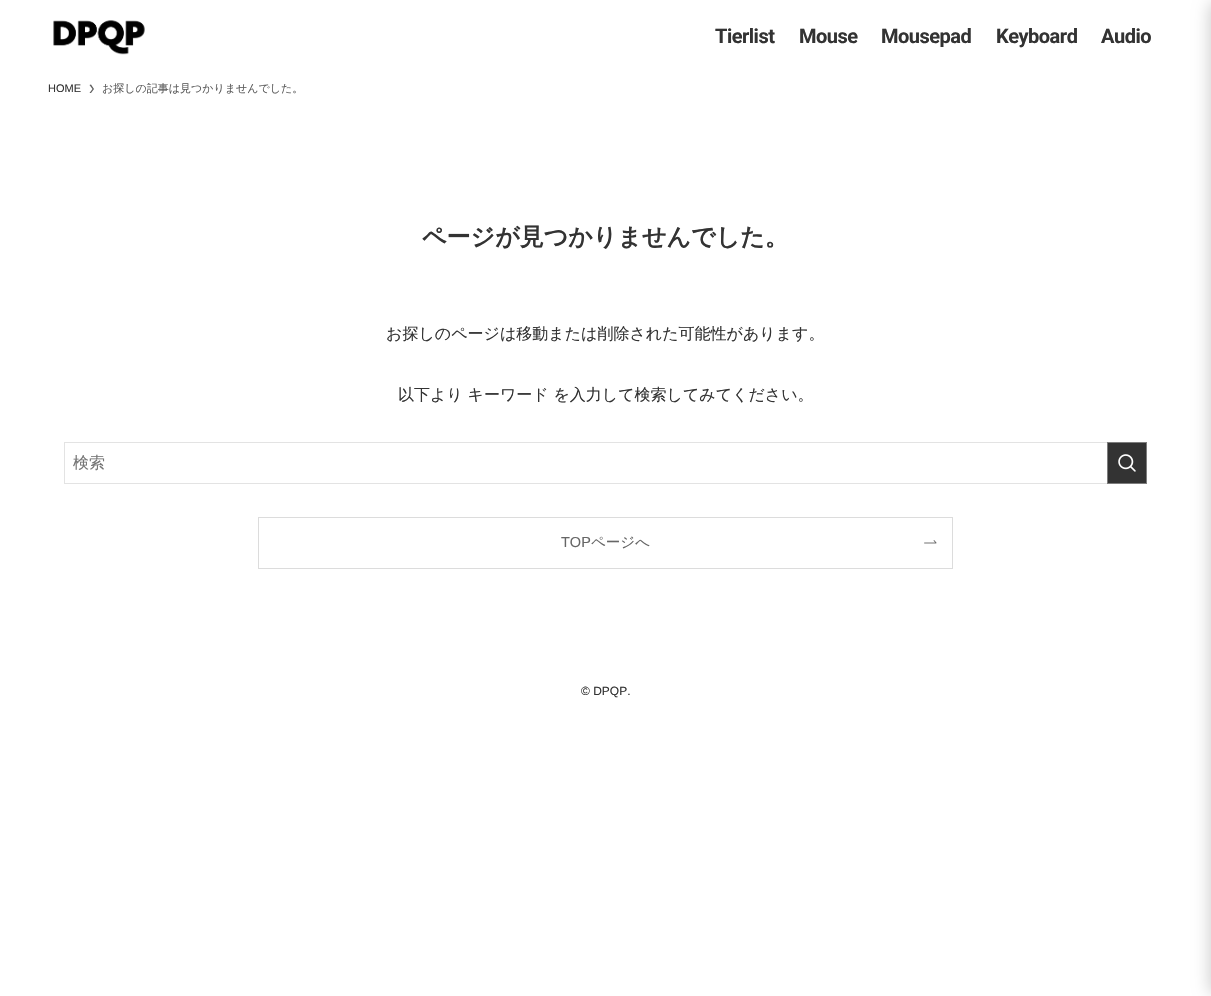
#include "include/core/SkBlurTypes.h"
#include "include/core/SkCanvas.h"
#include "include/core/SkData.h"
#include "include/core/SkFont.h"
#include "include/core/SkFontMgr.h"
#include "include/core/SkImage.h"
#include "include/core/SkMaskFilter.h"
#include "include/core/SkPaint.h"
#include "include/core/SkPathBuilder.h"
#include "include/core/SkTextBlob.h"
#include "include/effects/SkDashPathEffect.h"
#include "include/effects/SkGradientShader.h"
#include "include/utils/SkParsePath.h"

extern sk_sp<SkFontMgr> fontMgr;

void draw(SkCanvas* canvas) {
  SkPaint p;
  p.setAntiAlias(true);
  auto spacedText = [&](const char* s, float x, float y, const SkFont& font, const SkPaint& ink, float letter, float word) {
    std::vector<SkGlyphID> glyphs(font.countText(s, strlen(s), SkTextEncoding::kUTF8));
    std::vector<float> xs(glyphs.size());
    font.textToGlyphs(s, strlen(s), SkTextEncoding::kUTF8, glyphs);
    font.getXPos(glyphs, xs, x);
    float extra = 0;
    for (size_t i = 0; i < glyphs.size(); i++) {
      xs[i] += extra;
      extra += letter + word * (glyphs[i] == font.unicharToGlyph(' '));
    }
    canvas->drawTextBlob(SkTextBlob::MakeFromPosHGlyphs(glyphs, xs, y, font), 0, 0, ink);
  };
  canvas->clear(SK_ColorWHITE);
  canvas->drawImageRect(SkImages::DeferredFromEncodedData(SkData::MakeFromFileName("images/1.png")), SkRect::MakeLTRB(53, 20, 145, 55), SkSamplingOptions());
  p.setColor(SkColorSetRGB(92, 92, 92));
  canvas->drawPath(SkPathBuilder().moveTo(91, 84.5f).lineTo(89.5f, 85).lineTo(92.5f, 89).lineTo(89.5f, 93).lineTo(91, 93).lineTo(94, 89).close().detach(), p);
  p.setStyle(SkPaint::kStroke_Style);
  p.setStrokeWidth(1);
  p.setColor(SkColorSetRGB(227, 227, 227));
  canvas->drawRect(SkRect::MakeLTRB(64.5f, 442.5f, 1146.5f, 483.5f), p);
  p.setStyle(SkPaint::kFill_Style);
  p.setColor(SkColorSetRGB(51, 51, 51));
  canvas->drawRect(SkRect::MakeLTRB(1107.5f, 442.5f, 1146.5f, 483.5f), p);
  p.setStyle(SkPaint::kStroke_Style);
  p.setColor(SkColorSetRGB(125, 125, 125));
  canvas->drawRect(SkRect::MakeLTRB(1107.5f, 442.5f, 1146.5f, 483.5f), p);
  canvas->drawImageRect(SkImages::DeferredFromEncodedData(SkData::MakeFromFileName("images/2.png")), SkRect::MakeLTRB(1118, 454, 1136, 472), SkSamplingOptions());
  p.setColor(SkColorSetRGB(220, 220, 220));
  canvas->drawRect(SkRect::MakeLTRB(258.5f, 517.5f, 952.5f, 568.5f), p);
  canvas->drawImageRect(SkImages::DeferredFromEncodedData(SkData::MakeFromFileName("images/3.png")), SkRect::MakeLTRB(924, 540, 937, 544), SkSamplingOptions());
  p.setStyle(SkPaint::kFill_Style);
  p.setColor(SkColorSetARGB(46, 0, 0, 0));
  p.setMaskFilter(SkMaskFilter::MakeBlur(kNormal_SkBlurStyle, 8));
  canvas->drawRoundRect(SkRect::MakeLTRB(1209, 0, 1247, 996), 12, 12, p);
  p.setMaskFilter(nullptr);
  SkFont font1(fontMgr->matchFamilyStyle("Roboto", SkFontStyle::Bold()), 20);
  font1.setSubpixel(true);
  p.setColor(SkColorSetRGB(51, 51, 51));
  spacedText("Tierlist", 715, 43, font1, p, -0.5f, 0);
  spacedText("Mouse", 799, 43, font1, p, -0.5f, 0);
  spacedText("Mousepad", 881, 43, font1, p, -0.5f, 0);
  spacedText("Keyboard", 996, 43, font1, p, -0.5f, 0);
  spacedText("Audio", 1101, 43, font1, p, -0.5f, 0);
  SkFont font2(fontMgr->matchFamilyStyle("Liberation Sans", SkFontStyle::Normal()), 11);
  font2.setSubpixel(true);
  canvas->drawString("HOME", 48, 92, font2, p);
  SkFont font3(fontMgr->matchFamilyStyle("WenQuanYi Zen Hei", SkFontStyle(500, SkFontStyle::kNormal_Width, SkFontStyle::kUpright_Slant)), 11);
  font3.setSubpixel(true);
  p.setColor(SkColorSetRGB(92, 92, 92));
  canvas->drawString("お探しの記事は見つかりませんでした。", 102, 92, font3, p);
  SkFont font4(fontMgr->matchFamilyStyle("WenQuanYi Zen Hei", SkFontStyle::Bold()), 24);
  font4.setSubpixel(true);
  p.setColor(SkColorSetRGB(51, 51, 51));
  canvas->drawString("ページが見つかりませんでした。", 422, 245, font4, p);
  SkFont font5(fontMgr->matchFamilyStyle("WenQuanYi Zen Hei", SkFontStyle(500, SkFontStyle::kNormal_Width, SkFontStyle::kUpright_Slant)), 16);
  font5.setSubpixel(true);
  canvas->drawString("お探しのページは移動または削除された可能性があります。", 386, 339, font5, p);
  canvas->drawString("以下より キーワード を入力して検索してみてください。", 398, 400, font5, p);
  p.setColor(SkColorSetRGB(117, 117, 117));
  canvas->drawString("検索", 73, 468, font5, p);
  SkFont font6(fontMgr->matchFamilyStyle("Liberation Sans", SkFontStyle::Normal()), 14.5f);
  font6.setSubpixel(true);
  p.setColor(SkColorSetRGB(102, 102, 102));
  canvas->drawString("TOP", 561, 547, font6, p);
  SkFont font7(fontMgr->matchFamilyStyle("WenQuanYi Zen Hei", SkFontStyle(500, SkFontStyle::kNormal_Width, SkFontStyle::kUpright_Slant)), 14.5f);
  font7.setSubpixel(true);
  canvas->drawString("ページへ", 591, 547, font7, p);
  SkFont font8(fontMgr->matchFamilyStyle("Liberation Sans", SkFontStyle::Normal()), 12);
  font8.setSubpixel(true);
  p.setColor(SkColorSetRGB(51, 51, 51));
  canvas->drawString("© DPQP.", 581, 695, font8, p);
}
